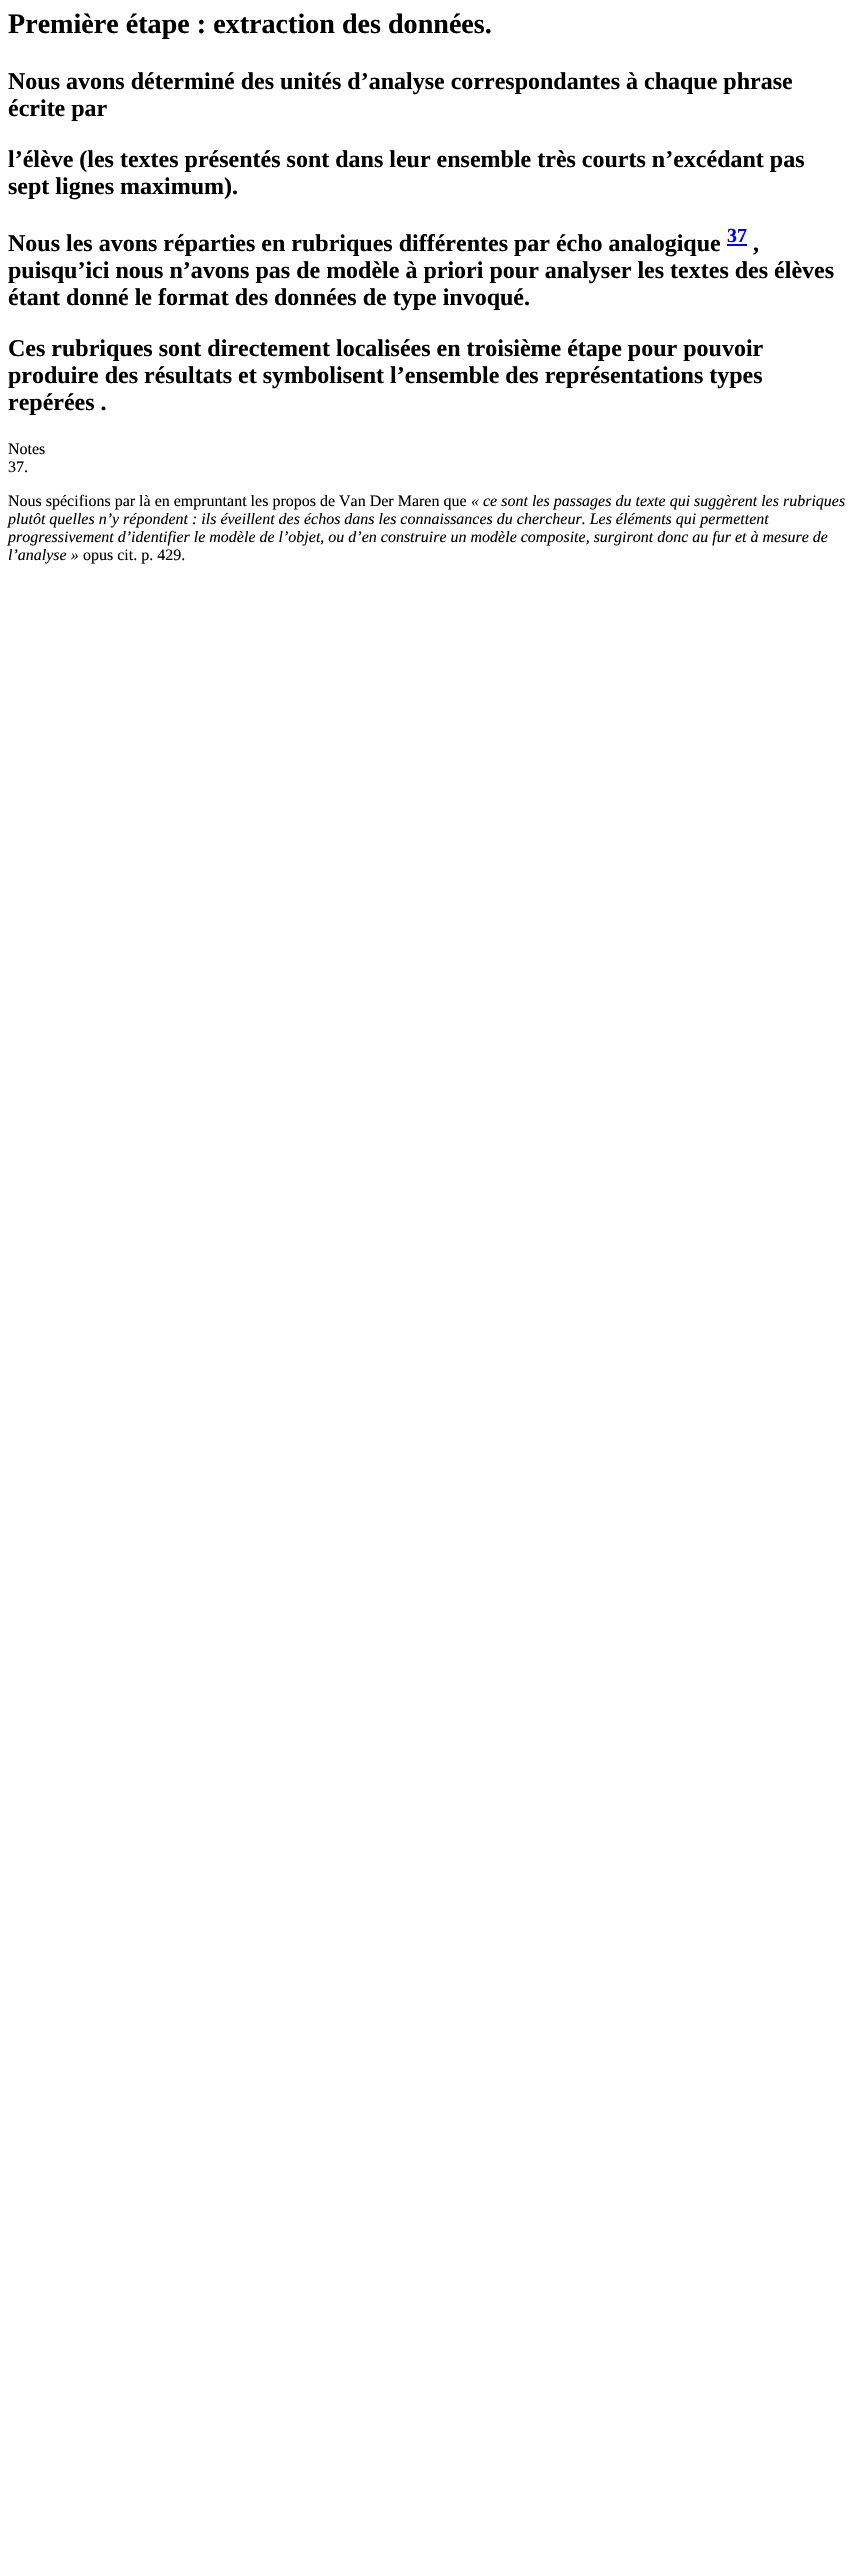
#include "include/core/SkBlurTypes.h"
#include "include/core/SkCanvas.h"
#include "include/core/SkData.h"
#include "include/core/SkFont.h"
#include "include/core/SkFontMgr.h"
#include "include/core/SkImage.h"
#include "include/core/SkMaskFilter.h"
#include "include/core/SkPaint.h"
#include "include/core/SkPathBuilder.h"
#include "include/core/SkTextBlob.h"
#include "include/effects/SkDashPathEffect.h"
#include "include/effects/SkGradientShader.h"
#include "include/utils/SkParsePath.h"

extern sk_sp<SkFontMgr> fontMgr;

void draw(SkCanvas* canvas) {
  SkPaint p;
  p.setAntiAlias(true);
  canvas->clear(SK_ColorWHITE);
  p.setColor(SkColorSetRGB(0, 0, 238));
  canvas->drawRect(SkRect::MakeLTRB(727, 244, 747, 246), p);
  SkFont font1(fontMgr->matchFamilyStyle("Liberation Serif", SkFontStyle::Bold()), 28.1f);
  font1.setSubpixel(true);
  p.setColor(SK_ColorBLACK);
  canvas->drawString("Première étape : extraction des données.", 8, 33, font1, p);
  SkFont font2(fontMgr->matchFamilyStyle("Liberation Serif", SkFontStyle::Bold()), 24);
  font2.setSubpixel(true);
  canvas->drawString("Nous avons déterminé des unités d’analyse correspondantes à chaque phrase", 8, 89, font2, p);
  canvas->drawString("écrite par", 8, 116, font2, p);
  canvas->drawString("l’élève (les textes présentés sont dans leur ensemble très courts n’excédant pas", 8, 167, font2, p);
  canvas->drawString("sept lignes maximum).", 8, 194, font2, p);
  canvas->drawString("Nous les avons réparties en rubriques différentes par écho analogique", 8, 251, font2, p);
  SkFont font3(fontMgr->matchFamilyStyle("Liberation Serif", SkFontStyle::Bold()), 20);
  font3.setSubpixel(true);
  p.setColor(SkColorSetRGB(0, 0, 238));
  canvas->drawString("37", 727, 242, font3, p);
  p.setColor(SK_ColorBLACK);
  canvas->drawString(",", 753, 251, font2, p);
  canvas->drawString("puisqu’ici nous n’avons pas de modèle à priori pour analyser les textes des élèves", 8, 278, font2, p);
  canvas->drawString("étant donné le format des données de type invoqué.", 8, 305, font2, p);
  canvas->drawString("Ces rubriques sont directement localisées en troisième étape pour pouvoir", 8, 356, font2, p);
  canvas->drawString("produire des résultats et symbolisent l’ensemble des représentations types", 8, 383, font2, p);
  canvas->drawString("repérées .", 8, 410, font2, p);
  SkFont font4(fontMgr->matchFamilyStyle("Liberation Serif", SkFontStyle::Normal()), 16);
  font4.setSubpixel(true);
  canvas->drawString("Notes", 8, 454, font4, p);
  canvas->drawString("37.", 8, 472, font4, p);
  canvas->drawString("Nous spécifions par là en empruntant les propos de Van Der Maren que", 8, 506, font4, p);
  SkFont font5(fontMgr->matchFamilyStyle("Liberation Serif", SkFontStyle::Italic()), 16);
  font5.setSubpixel(true);
  canvas->drawString("« ce sont les passages du texte qui suggèrent les rubriques", 471, 506, font5, p);
  canvas->drawString("plutôt quelles n’y répondent : ils éveillent des échos dans les connaissances du chercheur. Les éléments qui permettent", 8, 524, font5, p);
  canvas->drawString("progressivement d’identifier le modèle de l’objet, ou d’en construire un modèle composite, surgiront donc au fur et à mesure de", 8, 542, font5, p);
  canvas->drawString("l’analyse »", 8, 560, font5, p);
  canvas->drawString("opus cit. p. 429.", 83, 560, font4, p);
}
